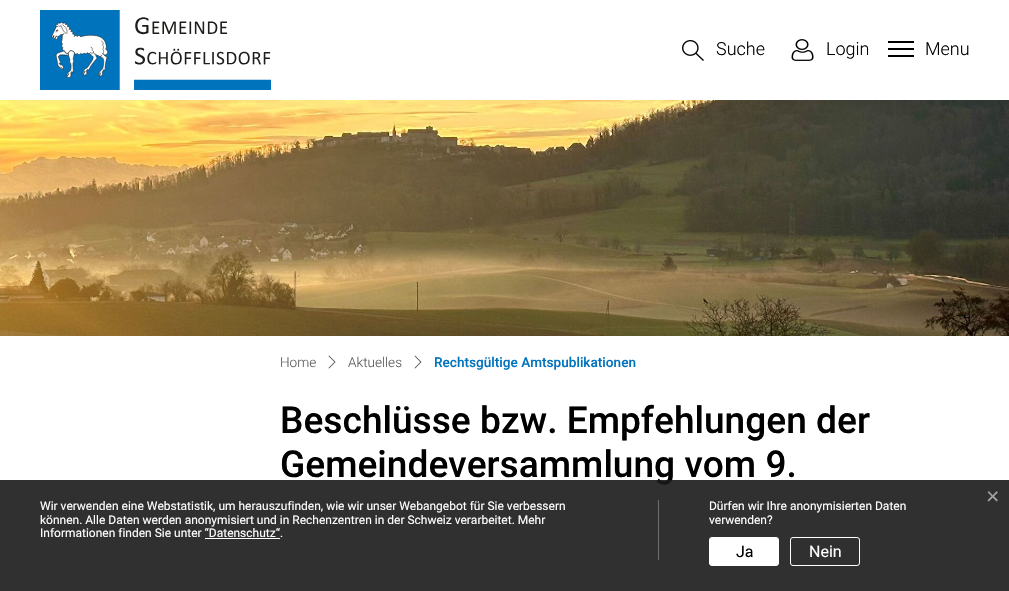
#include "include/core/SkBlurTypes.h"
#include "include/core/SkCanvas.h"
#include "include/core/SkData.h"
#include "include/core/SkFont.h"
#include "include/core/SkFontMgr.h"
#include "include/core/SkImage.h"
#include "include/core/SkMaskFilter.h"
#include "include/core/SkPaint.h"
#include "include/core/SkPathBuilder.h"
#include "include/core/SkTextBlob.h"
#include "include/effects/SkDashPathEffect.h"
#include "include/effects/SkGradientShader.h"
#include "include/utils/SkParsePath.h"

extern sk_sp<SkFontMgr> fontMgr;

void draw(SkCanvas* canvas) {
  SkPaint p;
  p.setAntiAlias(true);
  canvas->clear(SK_ColorWHITE);
  canvas->drawImageRect(SkImages::DeferredFromEncodedData(SkData::MakeFromFileName("images/1.png")), SkRect::MakeLTRB(40, 10, 271, 90), SkSamplingOptions());
  canvas->drawImageRect(SkImages::DeferredFromEncodedData(SkData::MakeFromFileName("images/2.png")), SkRect::MakeLTRB(682, 40, 704, 61), SkSamplingOptions());
  canvas->drawImageRect(SkImages::DeferredFromEncodedData(SkData::MakeFromFileName("images/3.png")), SkRect::MakeLTRB(791, 39, 814, 61), SkSamplingOptions());
  p.setColor(SK_ColorBLACK);
  canvas->drawRect(SkRect::MakeLTRB(888, 41, 914, 43), p);
  canvas->drawRect(SkRect::MakeLTRB(888, 48, 914, 50), p);
  canvas->drawRect(SkRect::MakeLTRB(888, 55, 914, 57), p);
  canvas->drawImageRect(SkImages::DeferredFromEncodedData(SkData::MakeFromFileName("images/4.png")), SkRect::MakeLTRB(0, 100, 1009, 336), SkSamplingOptions());
  canvas->drawImageRect(SkImages::DeferredFromEncodedData(SkData::MakeFromFileName("images/5.png")), SkRect::MakeLTRB(328, 355, 336, 369), SkSamplingOptions());
  canvas->drawImageRect(SkImages::DeferredFromEncodedData(SkData::MakeFromFileName("images/5.png")), SkRect::MakeLTRB(414, 355, 422, 369), SkSamplingOptions());
  SkFont font1(fontMgr->matchFamilyStyle("Roboto", SkFontStyle(300, SkFontStyle::kNormal_Width, SkFontStyle::kUpright_Slant)), 18);
  font1.setSubpixel(true);
  canvas->drawString("Suche", 716, 55, font1, p);
  canvas->drawString("Login", 826, 55, font1, p);
  canvas->drawString("Menu", 925, 55, font1, p);
  SkFont font2(fontMgr->matchFamilyStyle("Roboto", SkFontStyle(300, SkFontStyle::kNormal_Width, SkFontStyle::kUpright_Slant)), 13.6f);
  font2.setSubpixel(true);
  p.setColor(SkColorSetRGB(89, 90, 92));
  canvas->drawString("Home", 280, 367, font2, p);
  canvas->drawString("Aktuelles", 348, 367, font2, p);
  SkFont font3(fontMgr->matchFamilyStyle("Roboto", SkFontStyle(500, SkFontStyle::kNormal_Width, SkFontStyle::kUpright_Slant)), 13.6f);
  font3.setSubpixel(true);
  p.setColor(SkColorSetRGB(0, 115, 189));
  canvas->drawString("Rechtsgültige Amtspublikationen", 434, 367, font3, p);
  SkFont font4(fontMgr->matchFamilyStyle("Roboto", SkFontStyle(500, SkFontStyle::kNormal_Width, SkFontStyle::kUpright_Slant)), 37.1f);
  font4.setSubpixel(true);
  p.setColor(SK_ColorBLACK);
  canvas->drawString("Beschlüsse bzw. Empfehlungen der", 280, 433, font4, p);
  canvas->drawString("Gemeindeversammlung vom 9.", 280, 477, font4, p);
  p.setColor(SkColorSetARGB(230, 25, 25, 25));
  canvas->drawRect(SkRect::MakeLTRB(0, 480, 1009, 591), p);
  SkFont font5(fontMgr->matchFamilyStyle("Liberation Sans", SkFontStyle::Normal()), 23);
  font5.setSubpixel(true);
  p.setColor(SkColorSetRGB(162, 162, 162));
  canvas->drawString("×", 986, 504, font5, p);
  p.setColor(SkColorSetRGB(109, 109, 109));
  canvas->drawRect(SkRect::MakeLTRB(658, 500, 659, 560), p);
  SkFont font6(fontMgr->matchFamilyStyle("Roboto", SkFontStyle::Normal()), 12);
  font6.setSubpixel(true);
  p.setColor(SK_ColorWHITE);
  canvas->drawString("Wir verwenden eine Webstatistik, um herauszufinden, wie wir unser Webangebot für Sie verbessern", 40, 510, font6, p);
  canvas->drawString("können. Alle Daten werden anonymisiert und in Rechenzentren in der Schweiz verarbeitet. Mehr", 40, 524, font6, p);
  canvas->drawString("Informationen finden Sie unter “Datenschutz“.", 40, 537, font6, p);
  canvas->drawRect(SkRect::MakeLTRB(205, 538, 280, 539), p);
  canvas->drawString("Dürfen wir Ihre anonymisierten Daten", 709, 510, font6, p);
  canvas->drawString("verwenden?", 709, 524, font6, p);
  canvas->drawRoundRect(SkRect::MakeLTRB(709.5f, 537.5f, 778.5f, 565.5f), 2.5f, 2.5f, p);
  p.setStyle(SkPaint::kStroke_Style);
  p.setStrokeWidth(1);
  canvas->drawRoundRect(SkRect::MakeLTRB(709.5f, 537.5f, 778.5f, 565.5f), 2.5f, 2.5f, p);
  SkFont font7(fontMgr->matchFamilyStyle("Roboto", SkFontStyle::Normal()), 16);
  font7.setSubpixel(true);
  p.setStyle(SkPaint::kFill_Style);
  p.setColor(SK_ColorBLACK);
  canvas->drawString("Ja", 736, 557, font7, p);
  p.setStyle(SkPaint::kStroke_Style);
  p.setColor(SK_ColorWHITE);
  canvas->drawRoundRect(SkRect::MakeLTRB(790.5f, 537.5f, 859.5f, 565.5f), 2.5f, 2.5f, p);
  p.setStyle(SkPaint::kFill_Style);
  canvas->drawString("Nein", 809, 557, font7, p);
}
